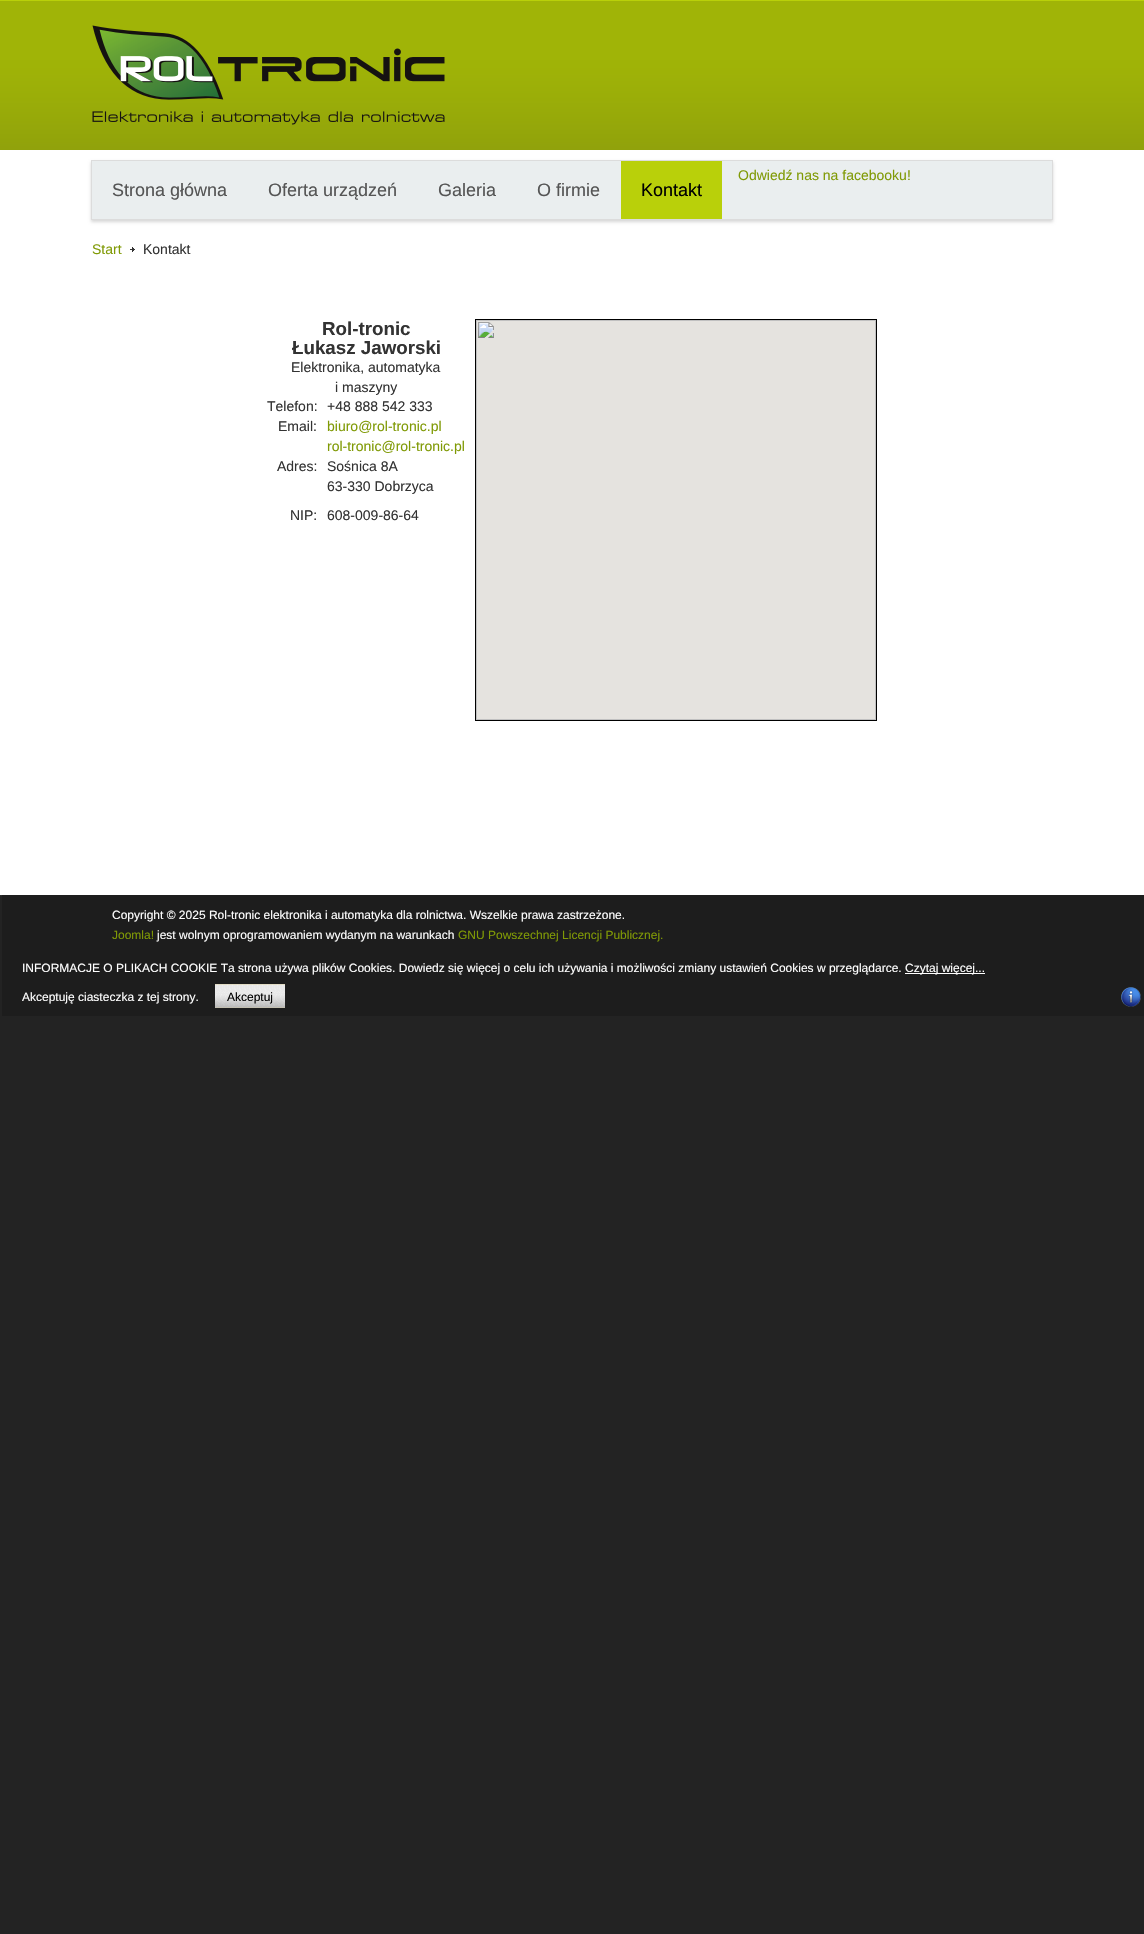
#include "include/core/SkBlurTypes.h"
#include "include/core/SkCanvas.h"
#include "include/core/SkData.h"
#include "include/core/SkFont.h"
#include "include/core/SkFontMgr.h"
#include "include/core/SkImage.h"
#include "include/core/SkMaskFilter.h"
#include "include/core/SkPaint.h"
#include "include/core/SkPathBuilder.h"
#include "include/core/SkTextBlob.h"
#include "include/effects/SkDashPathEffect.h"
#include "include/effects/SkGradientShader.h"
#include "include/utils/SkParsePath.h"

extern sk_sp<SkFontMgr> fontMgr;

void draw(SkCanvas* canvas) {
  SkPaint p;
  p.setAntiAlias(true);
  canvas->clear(SkColorSetRGB(35, 35, 35));
  canvas->drawImageRect(SkImages::DeferredFromEncodedData(SkData::MakeFromFileName("images/1.png")), SkRect::MakeLTRB(0, 0, 1144, 150), SkSamplingOptions());
  canvas->drawImageRect(SkImages::DeferredFromEncodedData(SkData::MakeFromFileName("images/2.png")), SkRect::MakeLTRB(92, 25, 445, 125), SkSamplingOptions());
  p.setColor(SK_ColorWHITE);
  canvas->drawRect(SkRect::MakeLTRB(0, 150, 1144, 895), p);
  p.setColor(SkColorSetRGB(215, 215, 215));
  p.setMaskFilter(SkMaskFilter::MakeBlur(kNormal_SkBlurStyle, 1.5f));
  canvas->drawRect(SkRect::MakeLTRB(91, 162, 1053, 222), p);
  p.setMaskFilter(nullptr);
  p.setColor(SkColorSetRGB(234, 238, 239));
  canvas->drawRect(SkRect::MakeLTRB(91.5f, 160.5f, 1052.5f, 219.5f), p);
  p.setStyle(SkPaint::kStroke_Style);
  p.setStrokeWidth(1);
  p.setColor(SkColorSetRGB(220, 220, 220));
  canvas->drawRect(SkRect::MakeLTRB(91.5f, 160.5f, 1052.5f, 219.5f), p);
  p.setStyle(SkPaint::kFill_Style);
  p.setColor(SkColorSetRGB(185, 208, 10));
  canvas->drawRect(SkRect::MakeLTRB(621, 161, 722, 219), p);
  canvas->drawImageRect(SkImages::DeferredFromEncodedData(SkData::MakeFromFileName("images/3.png")), SkRect::MakeLTRB(130, 247, 135, 252), SkSamplingOptions());
  p.setStyle(SkPaint::kStroke_Style);
  p.setColor(SK_ColorBLACK);
  canvas->drawRect(SkRect::MakeLTRB(475.5f, 319.5f, 876.5f, 720.5f), p);
  canvas->drawImageRect(SkImages::DeferredFromEncodedData(SkData::MakeFromFileName("images/4.png")), SkRect::MakeLTRB(476, 320, 876, 720), SkSamplingOptions());
  p.setStyle(SkPaint::kFill_Style);
  p.setColor(SkColorSetRGB(44, 44, 44));
  canvas->drawRect(SkRect::MakeLTRB(0, 895, 2, 896), p);
  p.setColor(SkColorSetRGB(29, 29, 29));
  canvas->drawRect(SkRect::MakeLTRB(2, 895, 1144, 1016), p);
  p.setColor(SK_ColorWHITE);
  canvas->drawRect(SkRect::MakeLTRB(905, 973, 985, 974), p);
  canvas->drawImageRect(SkImages::DeferredFromEncodedData(SkData::MakeFromFileName("images/5.png")), SkRect::MakeLTRB(215, 984, 285, 1008), SkSamplingOptions());
  canvas->drawImageRect(SkImages::DeferredFromEncodedData(SkData::MakeFromFileName("images/6.png")), SkRect::MakeLTRB(1121, 987, 1141, 1007), SkSamplingOptions());
  SkFont font1(fontMgr->matchFamilyStyle("Liberation Sans", SkFontStyle::Normal()), 14);
  font1.setSubpixel(true);
  p.setColor(SkColorSetRGB(128, 154, 5));
  canvas->drawString("Odwiedź nas na facebooku!", 738, 180, font1, p);
  SkFont font2(fontMgr->matchFamilyStyle("Liberation Sans", SkFontStyle::Normal()), 18);
  font2.setSubpixel(true);
  p.setColor(SkColorSetRGB(85, 85, 85));
  canvas->drawString("Strona główna", 112, 196, font2, p);
  canvas->drawString("Oferta urządzeń", 268, 196, font2, p);
  canvas->drawString("Galeria", 438, 196, font2, p);
  canvas->drawString("O firmie", 537, 196, font2, p);
  p.setColor(SK_ColorBLACK);
  canvas->drawString("Kontakt", 641, 196, font2, p);
  p.setColor(SkColorSetRGB(128, 154, 5));
  canvas->drawString("Start", 92, 254, font1, p);
  p.setColor(SkColorSetRGB(51, 51, 51));
  canvas->drawString("Kontakt", 143, 254, font1, p);
  SkFont font3(fontMgr->matchFamilyStyle("Liberation Sans", SkFontStyle::Bold()), 18.75f);
  font3.setSubpixel(true);
  canvas->drawString("Rol-tronic", 322, 335, font3, p);
  canvas->drawString("Łukasz Jaworski", 292, 354, font3, p);
  canvas->drawString("Elektronika, automatyka", 291, 372, font1, p);
  canvas->drawString("i maszyny", 335, 392, font1, p);
  canvas->drawString("Telefon:", 267, 411, font1, p);
  canvas->drawString("+48 888 542 333", 327, 411, font1, p);
  canvas->drawString("Email:", 278, 431, font1, p);
  p.setColor(SkColorSetRGB(128, 154, 5));
  canvas->drawString("biuro@rol-tronic.pl", 327, 431, font1, p);
  canvas->drawString("rol-tronic@rol-tronic.pl", 327, 451, font1, p);
  p.setColor(SkColorSetRGB(51, 51, 51));
  canvas->drawString("Adres:", 277, 471, font1, p);
  canvas->drawString("Sośnica 8A", 327, 471, font1, p);
  canvas->drawString("63-330 Dobrzyca", 327, 491, font1, p);
  canvas->drawString("NIP:", 290, 520, font1, p);
  canvas->drawString("608-009-86-64", 327, 520, font1, p);
  SkFont font4(fontMgr->matchFamilyStyle("Liberation Sans", SkFontStyle::Normal()), 12);
  font4.setSubpixel(true);
  p.setColor(SK_ColorWHITE);
  canvas->drawString("Copyright © 2025 Rol-tronic elektronika i automatyka dla rolnictwa. Wszelkie prawa zastrzeżone.", 112, 919, font4, p);
  p.setColor(SkColorSetRGB(128, 154, 5));
  canvas->drawString("Joomla!", 112, 939, font4, p);
  p.setColor(SK_ColorWHITE);
  canvas->drawString("jest wolnym oprogramowaniem wydanym na warunkach", 157, 939, font4, p);
  p.setColor(SkColorSetRGB(128, 154, 5));
  canvas->drawString("GNU Powszechnej Licencji Publicznej.", 458, 939, font4, p);
  p.setColor(SK_ColorWHITE);
  canvas->drawString("INFORMACJE O PLIKACH COOKIE Ta strona używa plików Cookies. Dowiedz się więcej o celu ich używania i możliwości zmiany ustawień Cookies w przeglądarce.", 22, 972, font4, p);
  canvas->drawString("Czytaj więcej...", 905, 972, font4, p);
  canvas->drawString("Akceptuję ciasteczka z tej strony.", 22, 1001, font4, p);
  p.setColor(SK_ColorBLACK);
  canvas->drawString("Akceptuj", 227, 1001, font4, p);
}
